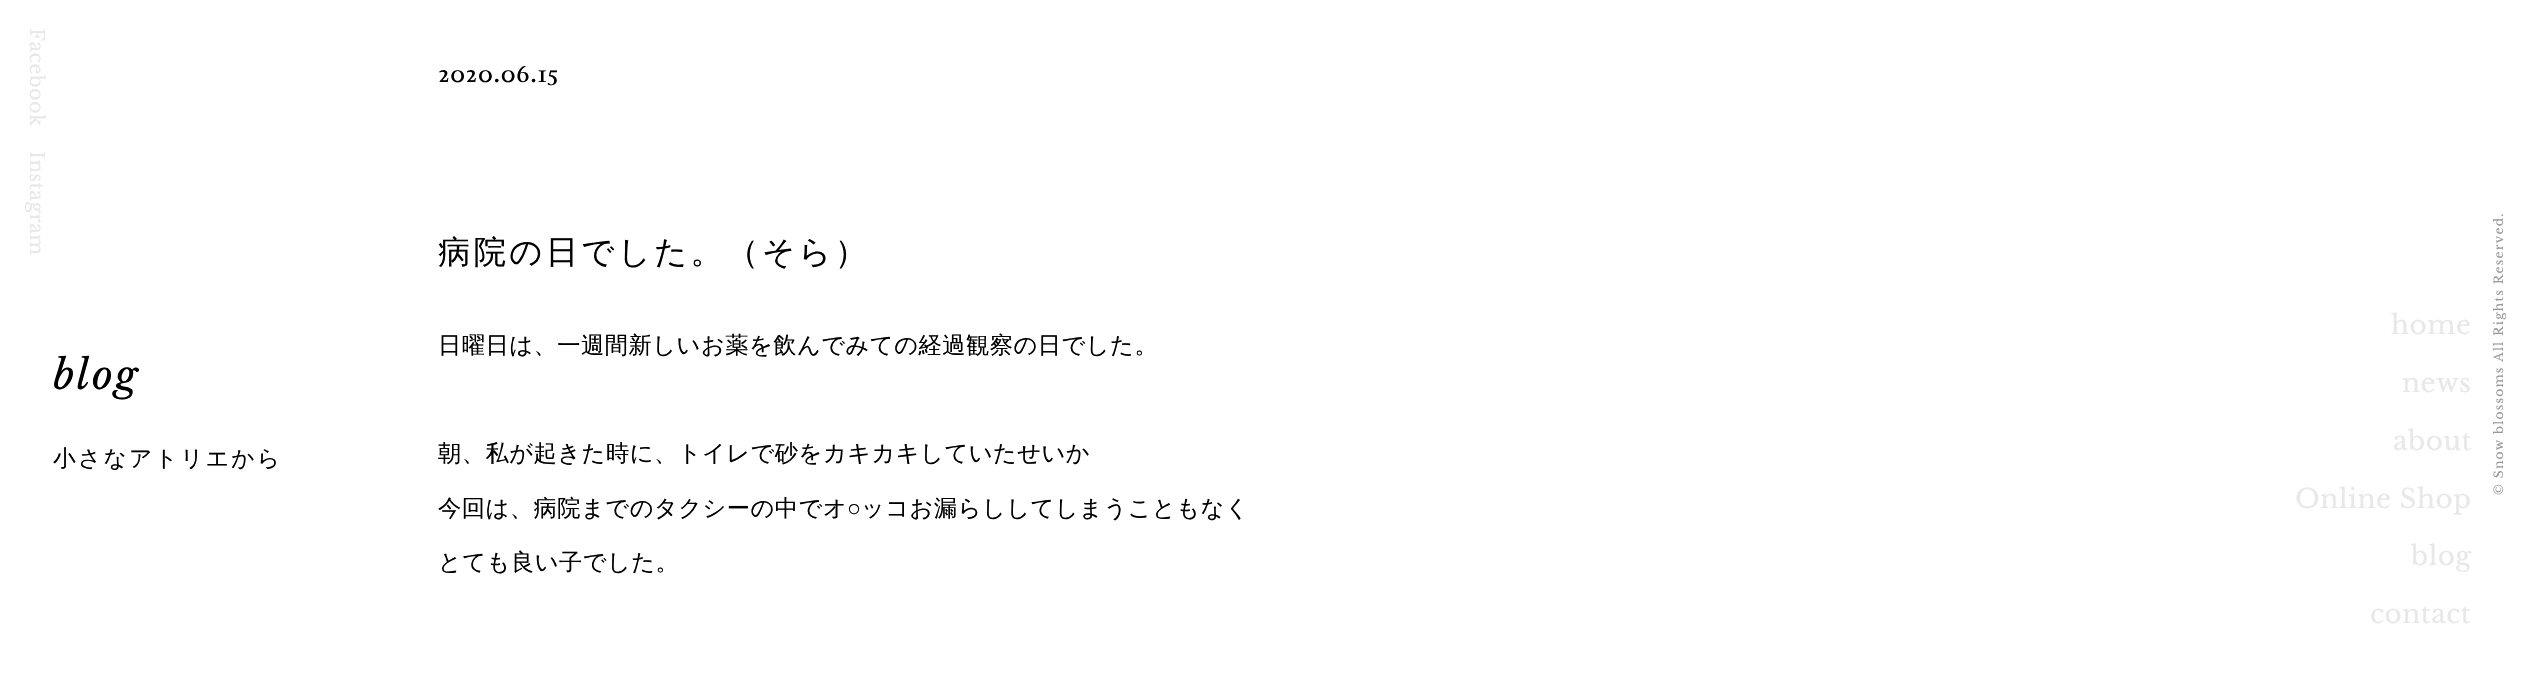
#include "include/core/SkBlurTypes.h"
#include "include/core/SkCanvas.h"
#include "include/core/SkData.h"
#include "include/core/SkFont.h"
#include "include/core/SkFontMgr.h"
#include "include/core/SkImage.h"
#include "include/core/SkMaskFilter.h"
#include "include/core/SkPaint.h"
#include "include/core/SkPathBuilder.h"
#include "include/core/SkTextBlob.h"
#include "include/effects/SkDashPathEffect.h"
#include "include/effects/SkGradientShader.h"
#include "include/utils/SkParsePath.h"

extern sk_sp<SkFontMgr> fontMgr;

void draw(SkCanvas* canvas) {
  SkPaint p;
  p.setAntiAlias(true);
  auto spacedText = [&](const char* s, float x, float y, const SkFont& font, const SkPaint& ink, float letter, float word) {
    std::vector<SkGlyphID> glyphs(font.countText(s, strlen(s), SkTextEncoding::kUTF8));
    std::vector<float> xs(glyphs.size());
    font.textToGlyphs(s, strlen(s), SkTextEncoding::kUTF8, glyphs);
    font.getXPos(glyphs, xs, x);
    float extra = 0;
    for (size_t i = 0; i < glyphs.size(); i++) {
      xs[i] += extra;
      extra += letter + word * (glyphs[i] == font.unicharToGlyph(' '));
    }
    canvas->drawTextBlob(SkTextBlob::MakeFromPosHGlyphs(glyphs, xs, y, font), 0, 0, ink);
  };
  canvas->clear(SK_ColorWHITE);
  SkFont font1(fontMgr->matchFamilyStyle("Libre Baskerville", SkFontStyle::Normal()), 19.25f);
  font1.setSubpixel(true);
  p.setColor(SkColorSetRGB(232, 232, 232));
  canvas->save();
  canvas->rotate(90, 30, 28);
  spacedText("Facebook", 30, 28, font1, p, 0.5f, 0);
  canvas->restore();
  canvas->save();
  canvas->rotate(90, 30, 151);
  spacedText("Instagram", 30, 151, font1, p, 0.5f, 0);
  canvas->restore();
  SkFont font2(fontMgr->matchFamilyStyle("Libre Baskerville", SkFontStyle::Normal()), 26.25f);
  font2.setSubpixel(true);
  spacedText("home", 2391, 334, font2, p, 0.5f, 0);
  spacedText("news", 2402, 392, font2, p, 0.5f, 0);
  spacedText("about", 2393, 450, font2, p, 0.5f, 0);
  spacedText("Online Shop", 2295, 508, font2, p, 0.5f, 0);
  spacedText("blog", 2411, 565, font2, p, 0.5f, 0);
  spacedText("contact", 2370, 623, font2, p, 0.5f, 0);
  SkFont font3(fontMgr->matchFamilyStyle("Radley", SkFontStyle::Normal()), 26.25f);
  font3.setSubpixel(true);
  p.setColor(SK_ColorBLACK);
  spacedText("2020.06.15", 438, 82, font3, p, 0.5f, 0);
  SkFont font4(fontMgr->matchFamilyStyle("WenQuanYi Zen Hei", SkFontStyle(500, SkFontStyle::kNormal_Width, SkFontStyle::kUpright_Slant)), 32.4f);
  font4.setSubpixel(true);
  spacedText("病院の日でした。（そら）", 438, 263, font4, p, 3.25f, 0);
  SkFont font5(fontMgr->matchFamilyStyle("Libre Baskerville", SkFontStyle::Normal()), 12.25f);
  font5.setSubpixel(true);
  p.setColor(SkColorSetRGB(153, 153, 153));
  canvas->save();
  canvas->rotate(-90, 2503, 495);
  spacedText("© Snow blossoms All Rights Reserved.", 2503, 495, font5, p, 1.2f, 0);
  canvas->restore();
  SkFont font6(fontMgr->matchFamilyStyle("Libre Baskerville", SkFontStyle::Italic()), 40);
  font6.setSubpixel(true);
  p.setColor(SK_ColorBLACK);
  spacedText("blog", 53, 389, font6, p, 2.5f, 0);
  SkFont font7(fontMgr->matchFamilyStyle("WenQuanYi Zen Hei", SkFontStyle(500, SkFontStyle::kNormal_Width, SkFontStyle::kUpright_Slant)), 22.75f);
  font7.setSubpixel(true);
  spacedText("小さなアトリエから", 53, 466, font7, p, 2.25f, 0);
  SkFont font8(fontMgr->matchFamilyStyle("WenQuanYi Zen Hei", SkFontStyle(500, SkFontStyle::kNormal_Width, SkFontStyle::kUpright_Slant)), 23.25f);
  font8.setSubpixel(true);
  spacedText("日曜日は、一週間新しいお薬を飲んでみての経過観察の日でした。", 438, 353, font8, p, 0.5f, 0);
  spacedText("朝、私が起きた時に、トイレで砂をカキカキしていたせいか", 438, 461, font8, p, 0.5f, 0);
  spacedText("今回は、病院までのタクシーの中でオ", 438, 516, font8, p, 0.5f, 0);
  SkFont font9(fontMgr->matchFamilyStyle("Liberation Serif", SkFontStyle::Normal()), 23.25f);
  font9.setSubpixel(true);
  spacedText("○", 847, 516, font9, p, 0.5f, 0);
  spacedText("ッコお漏らししてしまうこともなく", 861, 516, font8, p, 0.5f, 0);
  spacedText("とても良い子でした。", 438, 570, font8, p, 0.5f, 0);
}
